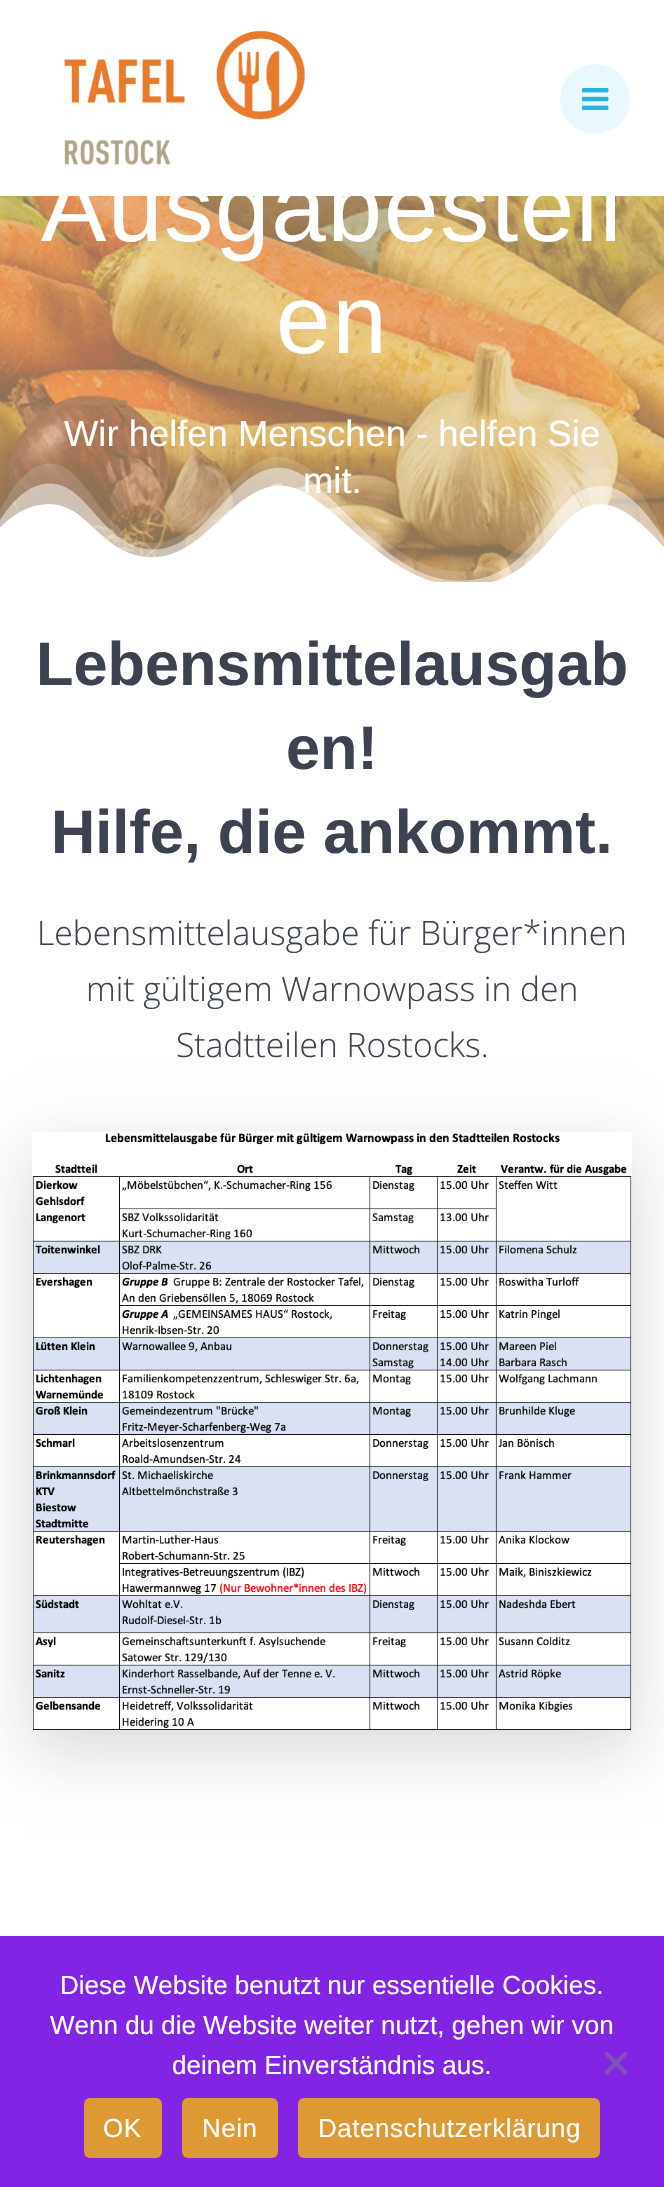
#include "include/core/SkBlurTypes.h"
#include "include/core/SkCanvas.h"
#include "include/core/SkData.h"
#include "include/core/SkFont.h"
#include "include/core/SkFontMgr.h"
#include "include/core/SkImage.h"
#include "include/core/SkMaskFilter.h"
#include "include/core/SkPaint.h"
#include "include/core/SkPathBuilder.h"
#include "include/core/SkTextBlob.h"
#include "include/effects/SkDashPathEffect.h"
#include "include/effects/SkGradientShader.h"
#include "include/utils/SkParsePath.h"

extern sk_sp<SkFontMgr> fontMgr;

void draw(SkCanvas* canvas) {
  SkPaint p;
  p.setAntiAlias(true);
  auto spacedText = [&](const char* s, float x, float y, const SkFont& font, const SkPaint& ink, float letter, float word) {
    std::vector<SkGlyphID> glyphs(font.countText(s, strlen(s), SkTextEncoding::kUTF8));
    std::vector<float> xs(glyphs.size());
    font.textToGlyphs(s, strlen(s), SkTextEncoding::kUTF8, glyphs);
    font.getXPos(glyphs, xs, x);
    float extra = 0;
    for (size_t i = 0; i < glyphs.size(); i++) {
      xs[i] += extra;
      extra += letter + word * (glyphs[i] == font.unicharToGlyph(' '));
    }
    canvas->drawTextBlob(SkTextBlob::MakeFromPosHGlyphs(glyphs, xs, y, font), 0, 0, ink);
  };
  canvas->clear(SK_ColorWHITE);
  canvas->drawImageRect(SkImages::DeferredFromEncodedData(SkData::MakeFromFileName("images/1.png")), SkRect::MakeLTRB(64, 30, 306, 165), SkSamplingOptions());
  p.setColor(SkColorSetRGB(233, 248, 252));
  canvas->drawCircle(595, 99, 35, p);
  canvas->drawImageRect(SkImages::DeferredFromEncodedData(SkData::MakeFromFileName("images/2.png")), SkRect::MakeLTRB(582, 88, 609, 110), SkSamplingOptions());
  canvas->drawImageRect(SkImages::DeferredFromEncodedData(SkData::MakeFromFileName("images/3.png")), SkRect::MakeLTRB(0, 196, 664, 582), SkSamplingOptions());
  canvas->drawImageRect(SkImages::DeferredFromEncodedData(SkData::MakeFromFileName("images/4.png")), SkRect::MakeLTRB(0, 457, 664, 582), SkSamplingOptions());
  p.setColor(SkColorSetARGB(20, 0, 0, 0));
  p.setMaskFilter(SkMaskFilter::MakeBlur(kNormal_SkBlurStyle, 30));
  canvas->drawRect(SkRect::MakeLTRB(30, 1150, 634, 1752), p);
  p.setMaskFilter(nullptr);
  p.setColor(SkColorSetARGB(77, 189, 189, 189));
  p.setMaskFilter(SkMaskFilter::MakeBlur(kNormal_SkBlurStyle, 30));
  canvas->drawRect(SkRect::MakeLTRB(30, 1150, 634, 1752), p);
  p.setMaskFilter(nullptr);
  canvas->drawImageRect(SkImages::DeferredFromEncodedData(SkData::MakeFromFileName("images/5.png")), SkRect::MakeLTRB(32, 1132, 632, 1730), SkSamplingOptions());
  p.setColor(SkColorSetRGB(130, 36, 227));
  canvas->drawRect(SkRect::MakeLTRB(0, 1936, 664, 2187), p);
  p.setColor(SkColorSetRGB(129, 82, 178));
  canvas->drawPath(SkPathBuilder().moveTo(625, 2051).lineTo(628, 2054).lineTo(607, 2075).lineTo(604, 2072).close().detach(), p);
  canvas->drawPath(SkPathBuilder().moveTo(604, 2054).lineTo(607, 2051).lineTo(628, 2072).lineTo(625, 2075).close().detach(), p);
  p.setColor(SkColorSetRGB(221, 153, 51));
  canvas->drawRoundRect(SkRect::MakeLTRB(84, 2098, 162, 2158), 6, 6, p);
  canvas->drawRoundRect(SkRect::MakeLTRB(182, 2098, 278, 2158), 6, 6, p);
  canvas->drawRoundRect(SkRect::MakeLTRB(298, 2098, 600, 2158), 6, 6, p);
  SkFont font1(fontMgr->matchFamilyStyle("Liberation Sans", SkFontStyle::Normal()), 98);
  font1.setSubpixel(true);
  p.setColor(SK_ColorWHITE);
  spacedText("Ausgabestell", 41, 241, font1, p, 1.75f, 0);
  spacedText("en", 276, 353, font1, p, 1.75f, 0);
  SkFont font2(fontMgr->matchFamilyStyle("Liberation Sans", SkFontStyle::Normal()), 36.4f);
  font2.setSubpixel(true);
  canvas->drawString("Wir helfen Menschen - helfen Sie", 64, 446, font2, p);
  canvas->drawString("mit.", 303, 493, font2, p);
  SkFont font3(fontMgr->matchFamilyStyle("Liberation Sans", SkFontStyle::Bold()), 61.25f);
  font3.setSubpixel(true);
  p.setColor(SkColorSetRGB(60, 66, 79));
  canvas->drawString("Lebensmittelausgab", 36, 685, font3, p);
  canvas->drawString("en!", 286, 769, font3, p);
  canvas->drawString("Hilfe, die ankommt.", 51, 853, font3, p);
  SkFont font4(fontMgr->matchFamilyStyle("Open Sans", SkFontStyle(300, SkFontStyle::kNormal_Width, SkFontStyle::kUpright_Slant)), 33.6f);
  font4.setSubpixel(true);
  canvas->drawString("Lebensmittelausgabe für Bürger*innen", 37, 945, font4, p);
  canvas->drawString("mit gültigem Warnowpass in den", 86, 1001, font4, p);
  canvas->drawString("Stadtteilen Rostocks.", 176, 1057, font4, p);
  SkFont font5(fontMgr->matchFamilyStyle("Liberation Sans", SkFontStyle::Normal()), 26);
  font5.setSubpixel(true);
  p.setColor(SK_ColorWHITE);
  canvas->drawString("Diese Website benutzt nur essentielle Cookies.", 60, 1994, font5, p);
  canvas->drawString("Wenn du die Website weiter nutzt, gehen wir von", 50, 2034, font5, p);
  canvas->drawString("deinem Einverständnis aus.", 172, 2074, font5, p);
  spacedText("OK", 103, 2137, font5, p, 0.5f, 0);
  spacedText("Nein", 202, 2137, font5, p, 0.5f, 0);
  spacedText("Datenschutzerklärung", 318, 2137, font5, p, 0.5f, 0);
}
